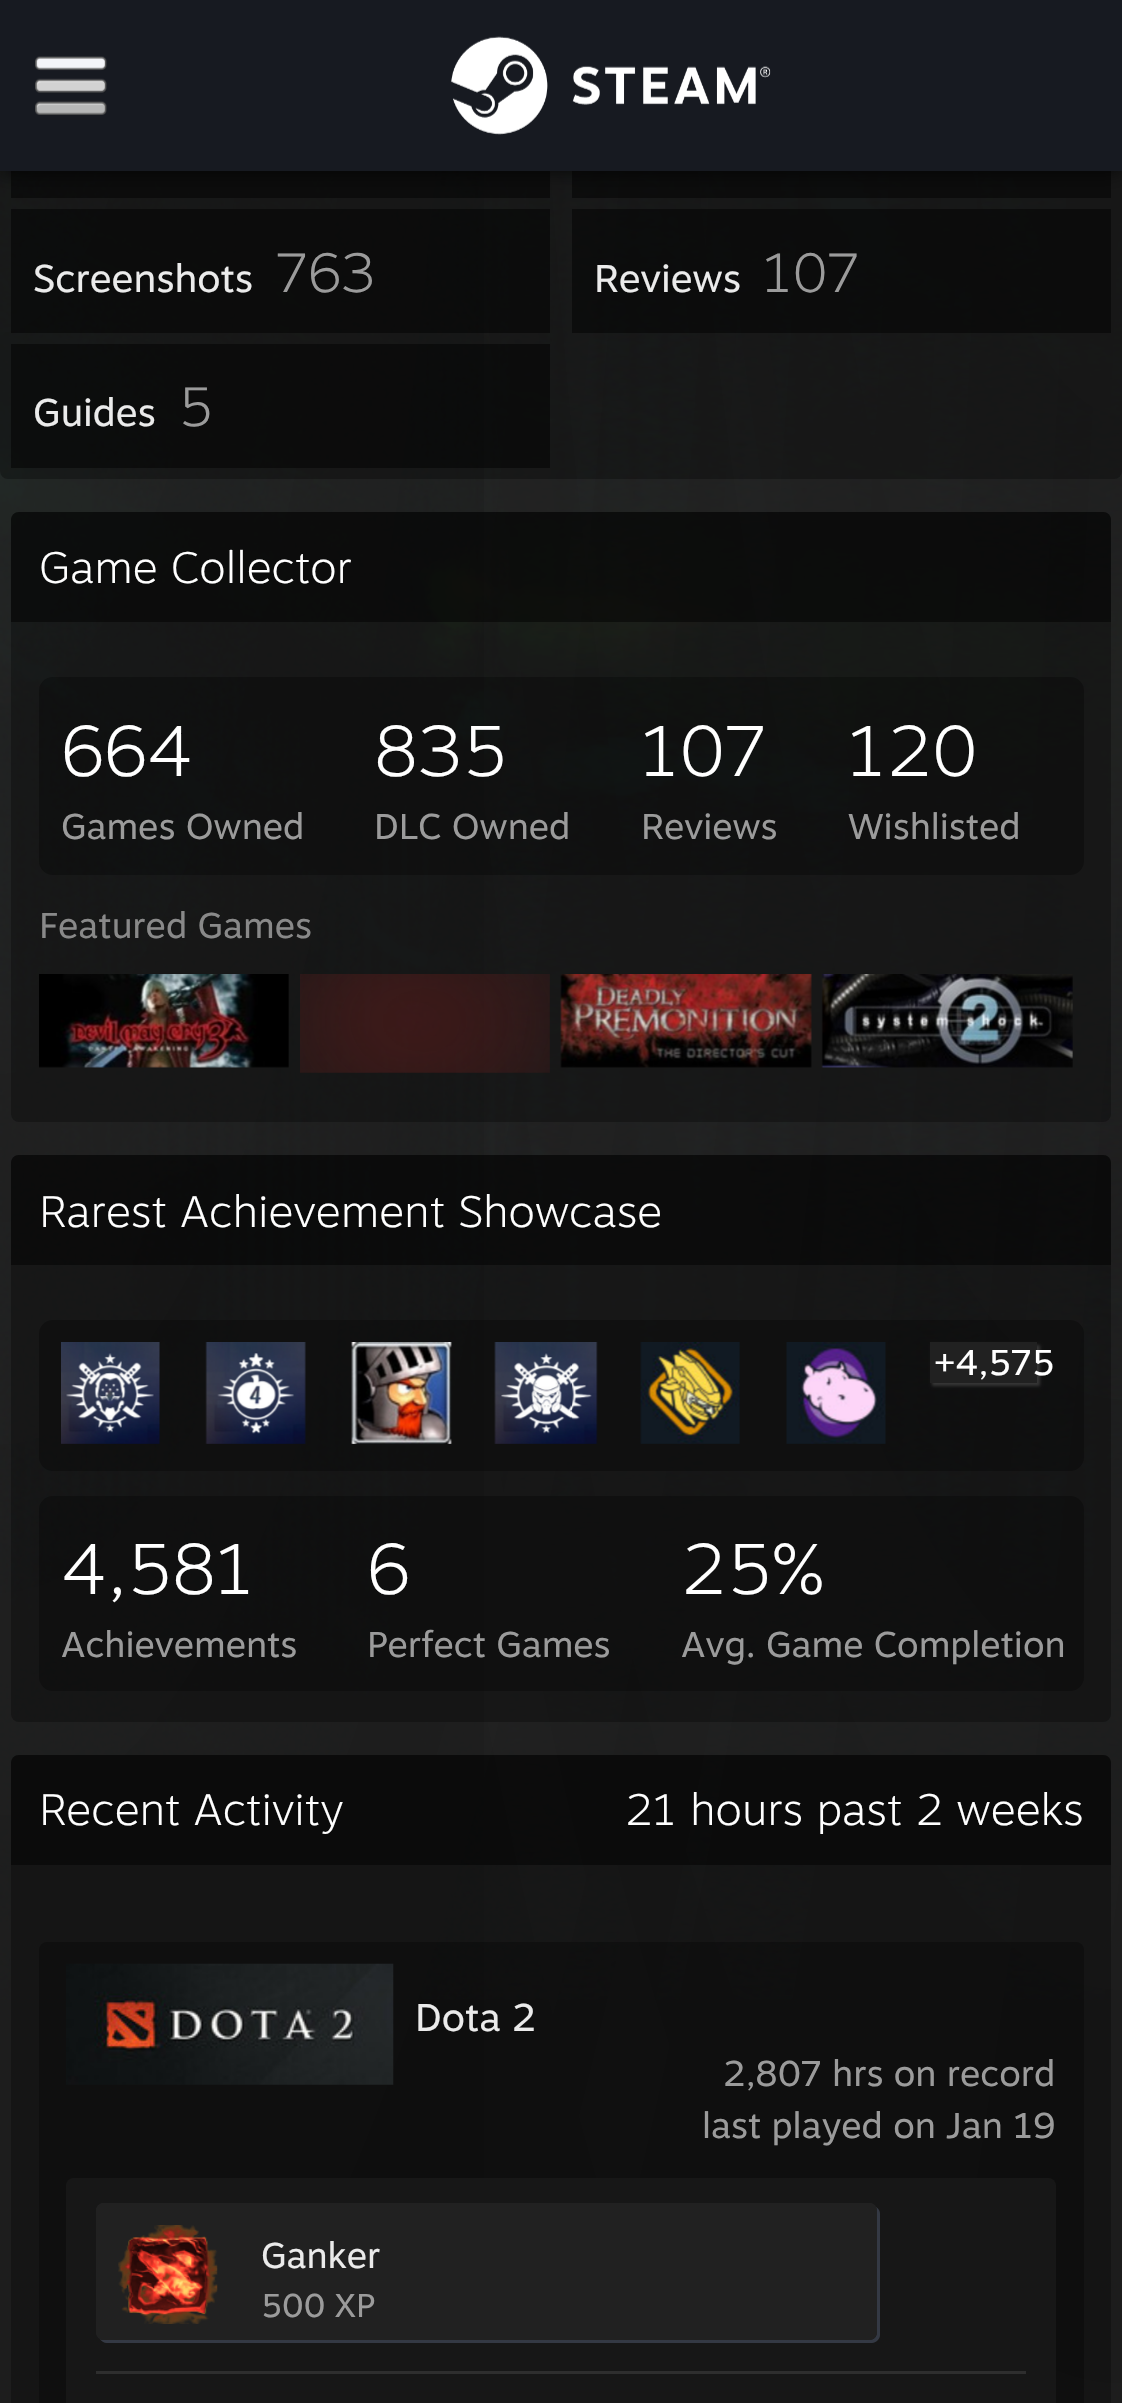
#include "include/core/SkBlurTypes.h"
#include "include/core/SkCanvas.h"
#include "include/core/SkData.h"
#include "include/core/SkFont.h"
#include "include/core/SkFontMgr.h"
#include "include/core/SkImage.h"
#include "include/core/SkMaskFilter.h"
#include "include/core/SkPaint.h"
#include "include/core/SkPathBuilder.h"
#include "include/core/SkTextBlob.h"
#include "include/effects/SkDashPathEffect.h"
#include "include/effects/SkGradientShader.h"
#include "include/utils/SkParsePath.h"

extern sk_sp<SkFontMgr> fontMgr;

void draw(SkCanvas* canvas) {
  SkPaint p;
  p.setAntiAlias(true);
  canvas->clear(SkColorSetRGB(22, 22, 22));
  canvas->drawImageRect(SkImages::DeferredFromEncodedData(SkData::MakeFromFileName("images/3.png")), SkRect::MakeLTRB(0, 171, 1122, 2000), SkSamplingOptions());
  {
    const SkColor colors[] = {SkColorSetARGB(94, 51, 51, 51), SkColorSetARGB(0, 51, 51, 51)};
    const float stops[] = {0, 1};
    SkMatrix m = SkMatrix::Translate(0, -520).preScale(1650, 6968);
    p.setShader(SkGradientShader::MakeRadial({0, 0}, 1, colors, stops, 2, SkTileMode::kClamp, 0, &m));
    p.setAlpha(255);
  }
  canvas->drawRect(SkRect::MakeLTRB(0, 171, 1122, 2403), p);
  {
    const SkColor colors[] = {SkColorSetARGB(59, 49, 49, 49), SkColorSetARGB(0, 49, 49, 49)};
    const float stops[] = {0, 1};
    SkMatrix m = SkMatrix::Translate(1122, -520).preScale(1375, 5807);
    p.setShader(SkGradientShader::MakeRadial({0, 0}, 1, colors, stops, 2, SkTileMode::kClamp, 0, &m));
    p.setAlpha(255);
  }
  canvas->drawRect(SkRect::MakeLTRB(484, 171, 1122, 2403), p);
  p.setShader(nullptr);
  p.setColor(SkColorSetARGB(77, 0, 0, 0));
  canvas->drawRoundRect(SkRect::MakeLTRB(0, -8, 1122, 479), 8, 8, p);
  p.setColor(SkColorSetARGB(128, 0, 0, 0));
  canvas->drawRect(SkRect::MakeLTRB(11, 171, 550, 198), p);
  canvas->drawRect(SkRect::MakeLTRB(572, 171, 1111, 198), p);
  p.setColor(SkColorSetARGB(191, 0, 0, 0));
  p.setMaskFilter(SkMaskFilter::MakeBlur(kNormal_SkBlurStyle, 9.5f));
  canvas->drawRect(SkRect::MakeLTRB(0, 0, 1122, 171), p);
  p.setMaskFilter(nullptr);
  p.setColor(SkColorSetRGB(23, 26, 33));
  canvas->drawRect(SkRect::MakeLTRB(0, 0, 1122, 171), p);
  canvas->drawImageRect(SkImages::DeferredFromEncodedData(SkData::MakeFromFileName("images/1.png")), SkRect::MakeLTRB(35, 56, 107, 115), SkSamplingOptions());
  canvas->drawImageRect(SkImages::DeferredFromEncodedData(SkData::MakeFromFileName("images/2.png")), SkRect::MakeLTRB(451, 36, 771, 135), SkSamplingOptions());
  p.setColor(SkColorSetARGB(128, 0, 0, 0));
  canvas->drawRect(SkRect::MakeLTRB(11, 209, 550, 333), p);
  canvas->drawRect(SkRect::MakeLTRB(572, 209, 1111, 333), p);
  canvas->drawRect(SkRect::MakeLTRB(11, 344, 550, 468), p);
  p.setColor(SkColorSetARGB(77, 0, 0, 0));
  canvas->drawRoundRect(SkRect::MakeLTRB(11, 512, 1111, 1122), 8, 8, p);
  p.setColor(SkColorSetARGB(128, 0, 0, 0));
  canvas->drawPath(SkPathBuilder().moveTo(19, 512).lineTo(1103, 512).cubicTo(1107.5f, 512, 1111, 515.5f, 1111, 520).lineTo(1111, 622).lineTo(11, 622).lineTo(11, 520).cubicTo(11, 515.5f, 14.5f, 512, 19, 512).close().detach(), p);
  p.setColor(SkColorSetARGB(77, 0, 0, 0));
  canvas->drawRoundRect(SkRect::MakeLTRB(39, 677, 1084, 875), 14, 14, p);
  canvas->drawImageRect(SkImages::DeferredFromEncodedData(SkData::MakeFromFileName("images/4.png")), SkRect::MakeLTRB(39, 974, 289, 1068), SkSamplingOptions());
  canvas->drawImageRect(SkImages::DeferredFromEncodedData(SkData::MakeFromFileName("images/5.png")), SkRect::MakeLTRB(300, 974, 550, 1073), SkSamplingOptions());
  canvas->drawImageRect(SkImages::DeferredFromEncodedData(SkData::MakeFromFileName("images/6.png")), SkRect::MakeLTRB(560, 974, 812, 1068), SkSamplingOptions());
  canvas->drawImageRect(SkImages::DeferredFromEncodedData(SkData::MakeFromFileName("images/7.png")), SkRect::MakeLTRB(821, 974, 1073, 1068), SkSamplingOptions());
  canvas->drawRoundRect(SkRect::MakeLTRB(11, 1155, 1111, 1722), 8, 8, p);
  p.setColor(SkColorSetARGB(128, 0, 0, 0));
  canvas->drawPath(SkPathBuilder().moveTo(19, 1155).lineTo(1103, 1155).cubicTo(1107.5f, 1155, 1111, 1158.5f, 1111, 1163).lineTo(1111, 1265).lineTo(11, 1265).lineTo(11, 1163).cubicTo(11, 1158.5f, 14.5f, 1155, 19, 1155).close().detach(), p);
  p.setColor(SkColorSetARGB(77, 0, 0, 0));
  canvas->drawRoundRect(SkRect::MakeLTRB(39, 1320, 1084, 1471), 14, 14, p);
  canvas->drawImageRect(SkImages::DeferredFromEncodedData(SkData::MakeFromFileName("images/8.png")), SkRect::MakeLTRB(61, 1342, 160, 1444), SkSamplingOptions());
  canvas->drawImageRect(SkImages::DeferredFromEncodedData(SkData::MakeFromFileName("images/9.png")), SkRect::MakeLTRB(205, 1342, 306, 1444), SkSamplingOptions());
  canvas->drawImageRect(SkImages::DeferredFromEncodedData(SkData::MakeFromFileName("images/10.png")), SkRect::MakeLTRB(351, 1342, 452, 1444), SkSamplingOptions());
  canvas->drawImageRect(SkImages::DeferredFromEncodedData(SkData::MakeFromFileName("images/11.png")), SkRect::MakeLTRB(494, 1342, 598, 1444), SkSamplingOptions());
  canvas->drawImageRect(SkImages::DeferredFromEncodedData(SkData::MakeFromFileName("images/12.png")), SkRect::MakeLTRB(640, 1342, 740, 1444), SkSamplingOptions());
  canvas->drawImageRect(SkImages::DeferredFromEncodedData(SkData::MakeFromFileName("images/13.png")), SkRect::MakeLTRB(786, 1342, 886, 1444), SkSamplingOptions());
  p.setColor(SkColorSetRGB(53, 53, 53));
  p.setMaskFilter(SkMaskFilter::MakeBlur(kNormal_SkBlurStyle, 1.5f));
  canvas->drawRect(SkRect::MakeLTRB(932, 1345, 1040, 1386), p);
  p.setMaskFilter(nullptr);
  p.setColor(SkColorSetRGB(33, 33, 33));
  canvas->drawRect(SkRect::MakeLTRB(930, 1342, 1037, 1383), p);
  p.setColor(SkColorSetARGB(77, 0, 0, 0));
  canvas->drawRoundRect(SkRect::MakeLTRB(39, 1496, 1084, 1691), 14, 14, p);
  canvas->drawRoundRect(SkRect::MakeLTRB(11, 1755, 1111, 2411), 8, 8, p);
  p.setColor(SkColorSetARGB(128, 0, 0, 0));
  canvas->drawPath(SkPathBuilder().moveTo(19, 1755).lineTo(1103, 1755).cubicTo(1107.5f, 1755, 1111, 1758.5f, 1111, 1763).lineTo(1111, 1865).lineTo(11, 1865).lineTo(11, 1763).cubicTo(11, 1758.5f, 14.5f, 1755, 19, 1755).close().detach(), p);
  p.setColor(SkColorSetARGB(77, 0, 0, 0));
  canvas->drawRoundRect(SkRect::MakeLTRB(39, 1942, 1084, 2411), 8, 8, p);
  canvas->drawImageRect(SkImages::DeferredFromEncodedData(SkData::MakeFromFileName("images/14.png")), SkRect::MakeLTRB(66, 1963, 394, 2085), SkSamplingOptions());
  p.setColor(SkColorSetRGB(23, 23, 23));
  canvas->drawRoundRect(SkRect::MakeLTRB(66, 2178, 1056, 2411), 8, 8, p);
  p.setColor(SkColorSetRGB(52, 57, 68));
  canvas->drawPath(SkPathBuilder().moveTo(100, 2339).cubicTo(101, 2341, 104, 2343, 107, 2343).lineTo(872, 2343).cubicTo(876, 2343, 880, 2339, 880, 2335).lineTo(880, 2214).cubicTo(880, 2211, 879, 2209, 876, 2207).lineTo(877, 2211).lineTo(877, 2332).cubicTo(877, 2337, 874, 2340, 869, 2340).lineTo(104, 2340).cubicTo(103, 2340, 101, 2340, 100, 2339).close().detach(), p);
  p.setColor(SkColorSetRGB(34, 34, 35));
  canvas->drawRoundRect(SkRect::MakeLTRB(96, 2203, 877, 2340), 8, 8, p);
  p.setColor(SkColorSetRGB(33, 33, 33));
  canvas->drawPath(SkPathBuilder().moveTo(104, 2203).lineTo(869, 2203).cubicTo(873, 2203, 877, 2207, 877, 2211).lineTo(877, 2332).cubicTo(877, 2336, 873, 2340, 869, 2340).lineTo(104, 2340).cubicTo(100, 2340, 96, 2336, 96, 2332).lineTo(96, 2211).cubicTo(96, 2207, 100, 2203, 104, 2203).close().detach(), p);
  canvas->drawImageRect(SkImages::DeferredFromEncodedData(SkData::MakeFromFileName("images/15.png")), SkRect::MakeLTRB(118, 2225, 218, 2324), SkSamplingOptions());
  p.setColor(SkColorSetRGB(46, 46, 46));
  canvas->drawRect(SkRect::MakeLTRB(96, 2371, 1026, 2374), p);
  SkFont font1(fontMgr->matchFamilyStyle("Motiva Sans", SkFontStyle::Normal()), 38.5f);
  font1.setSubpixel(true);
  p.setColor(SkColorSetRGB(235, 235, 235));
  canvas->drawString("Screenshots", 33, 292, font1, p);
  SkFont font2(fontMgr->matchFamilyStyle("Motiva Sans", SkFontStyle(100, SkFontStyle::kNormal_Width, SkFontStyle::kUpright_Slant)), 55);
  font2.setSubpixel(true);
  p.setColor(SkColorSetRGB(155, 155, 155));
  canvas->drawString("763", 276, 292, font2, p);
  p.setColor(SkColorSetRGB(235, 235, 235));
  canvas->drawString("Reviews", 594, 292, font1, p);
  p.setColor(SkColorSetRGB(155, 155, 155));
  canvas->drawString("107", 763, 292, font2, p);
  p.setColor(SkColorSetRGB(235, 235, 235));
  canvas->drawString("Guides", 33, 426, font1, p);
  p.setColor(SkColorSetRGB(155, 155, 155));
  canvas->drawString("5", 178, 426, font2, p);
  SkFont font3(fontMgr->matchFamilyStyle("Motiva Sans", SkFontStyle(100, SkFontStyle::kNormal_Width, SkFontStyle::kUpright_Slant)), 44);
  font3.setSubpixel(true);
  p.setColor(SK_ColorWHITE);
  canvas->drawString("Game Collector", 39, 583, font3, p);
  SkFont font4(fontMgr->matchFamilyStyle("Motiva Sans", SkFontStyle(100, SkFontStyle::kNormal_Width, SkFontStyle::kUpright_Slant)), 71.5f);
  font4.setSubpixel(true);
  canvas->drawString("664", 61, 776, font4, p);
  SkFont font5(fontMgr->matchFamilyStyle("Motiva Sans", SkFontStyle::Normal()), 35.75f);
  font5.setSubpixel(true);
  p.setColor(SkColorSetRGB(155, 155, 155));
  canvas->drawString("Games Owned", 61, 839, font5, p);
  p.setColor(SK_ColorWHITE);
  canvas->drawString("835", 374, 776, font4, p);
  p.setColor(SkColorSetRGB(155, 155, 155));
  canvas->drawString("DLC Owned", 374, 839, font5, p);
  p.setColor(SK_ColorWHITE);
  canvas->drawString("107", 641, 776, font4, p);
  p.setColor(SkColorSetRGB(155, 155, 155));
  canvas->drawString("Reviews", 641, 839, font5, p);
  p.setColor(SK_ColorWHITE);
  canvas->drawString("120", 848, 776, font4, p);
  p.setColor(SkColorSetRGB(155, 155, 155));
  canvas->drawString("Wishlisted", 848, 839, font5, p);
  p.setColor(SkColorSetRGB(137, 137, 137));
  canvas->drawString("Featured Games", 39, 938, font5, p);
  p.setColor(SK_ColorWHITE);
  canvas->drawString("Rarest Achievement Showcase", 39, 1227, font3, p);
  canvas->drawString("+4,575", 934, 1375, font5, p);
  canvas->drawString("4,581", 61, 1594, font4, p);
  p.setColor(SkColorSetRGB(155, 155, 155));
  canvas->drawString("Achievements", 61, 1657, font5, p);
  p.setColor(SK_ColorWHITE);
  canvas->drawString("6", 367, 1594, font4, p);
  p.setColor(SkColorSetRGB(155, 155, 155));
  canvas->drawString("Perfect Games", 367, 1657, font5, p);
  p.setColor(SK_ColorWHITE);
  canvas->drawString("25%", 681, 1594, font4, p);
  p.setColor(SkColorSetRGB(155, 155, 155));
  canvas->drawString("Avg. Game Completion", 681, 1657, font5, p);
  p.setColor(SK_ColorWHITE);
  canvas->drawString("Recent Activity", 39, 1825, font3, p);
  canvas->drawString("21 hours past 2 weeks", 625, 1825, font3, p);
  p.setColor(SkColorSetRGB(235, 235, 235));
  canvas->drawString("Dota 2", 415, 2031, font1, p);
  p.setColor(SkColorSetRGB(155, 155, 155));
  canvas->drawString("2,807 hrs on record", 723, 2086, font5, p);
  canvas->drawString("last played on Jan 19", 702, 2138, font5, p);
  p.setColor(SkColorSetRGB(235, 235, 235));
  canvas->drawString("Ganker", 261, 2268, font5, p);
  SkFont font6(fontMgr->matchFamilyStyle("Motiva Sans", SkFontStyle::Normal()), 33);
  font6.setSubpixel(true);
  p.setColor(SkColorSetRGB(155, 155, 155));
  canvas->drawString("500 XP", 261, 2317, font6, p);
}
